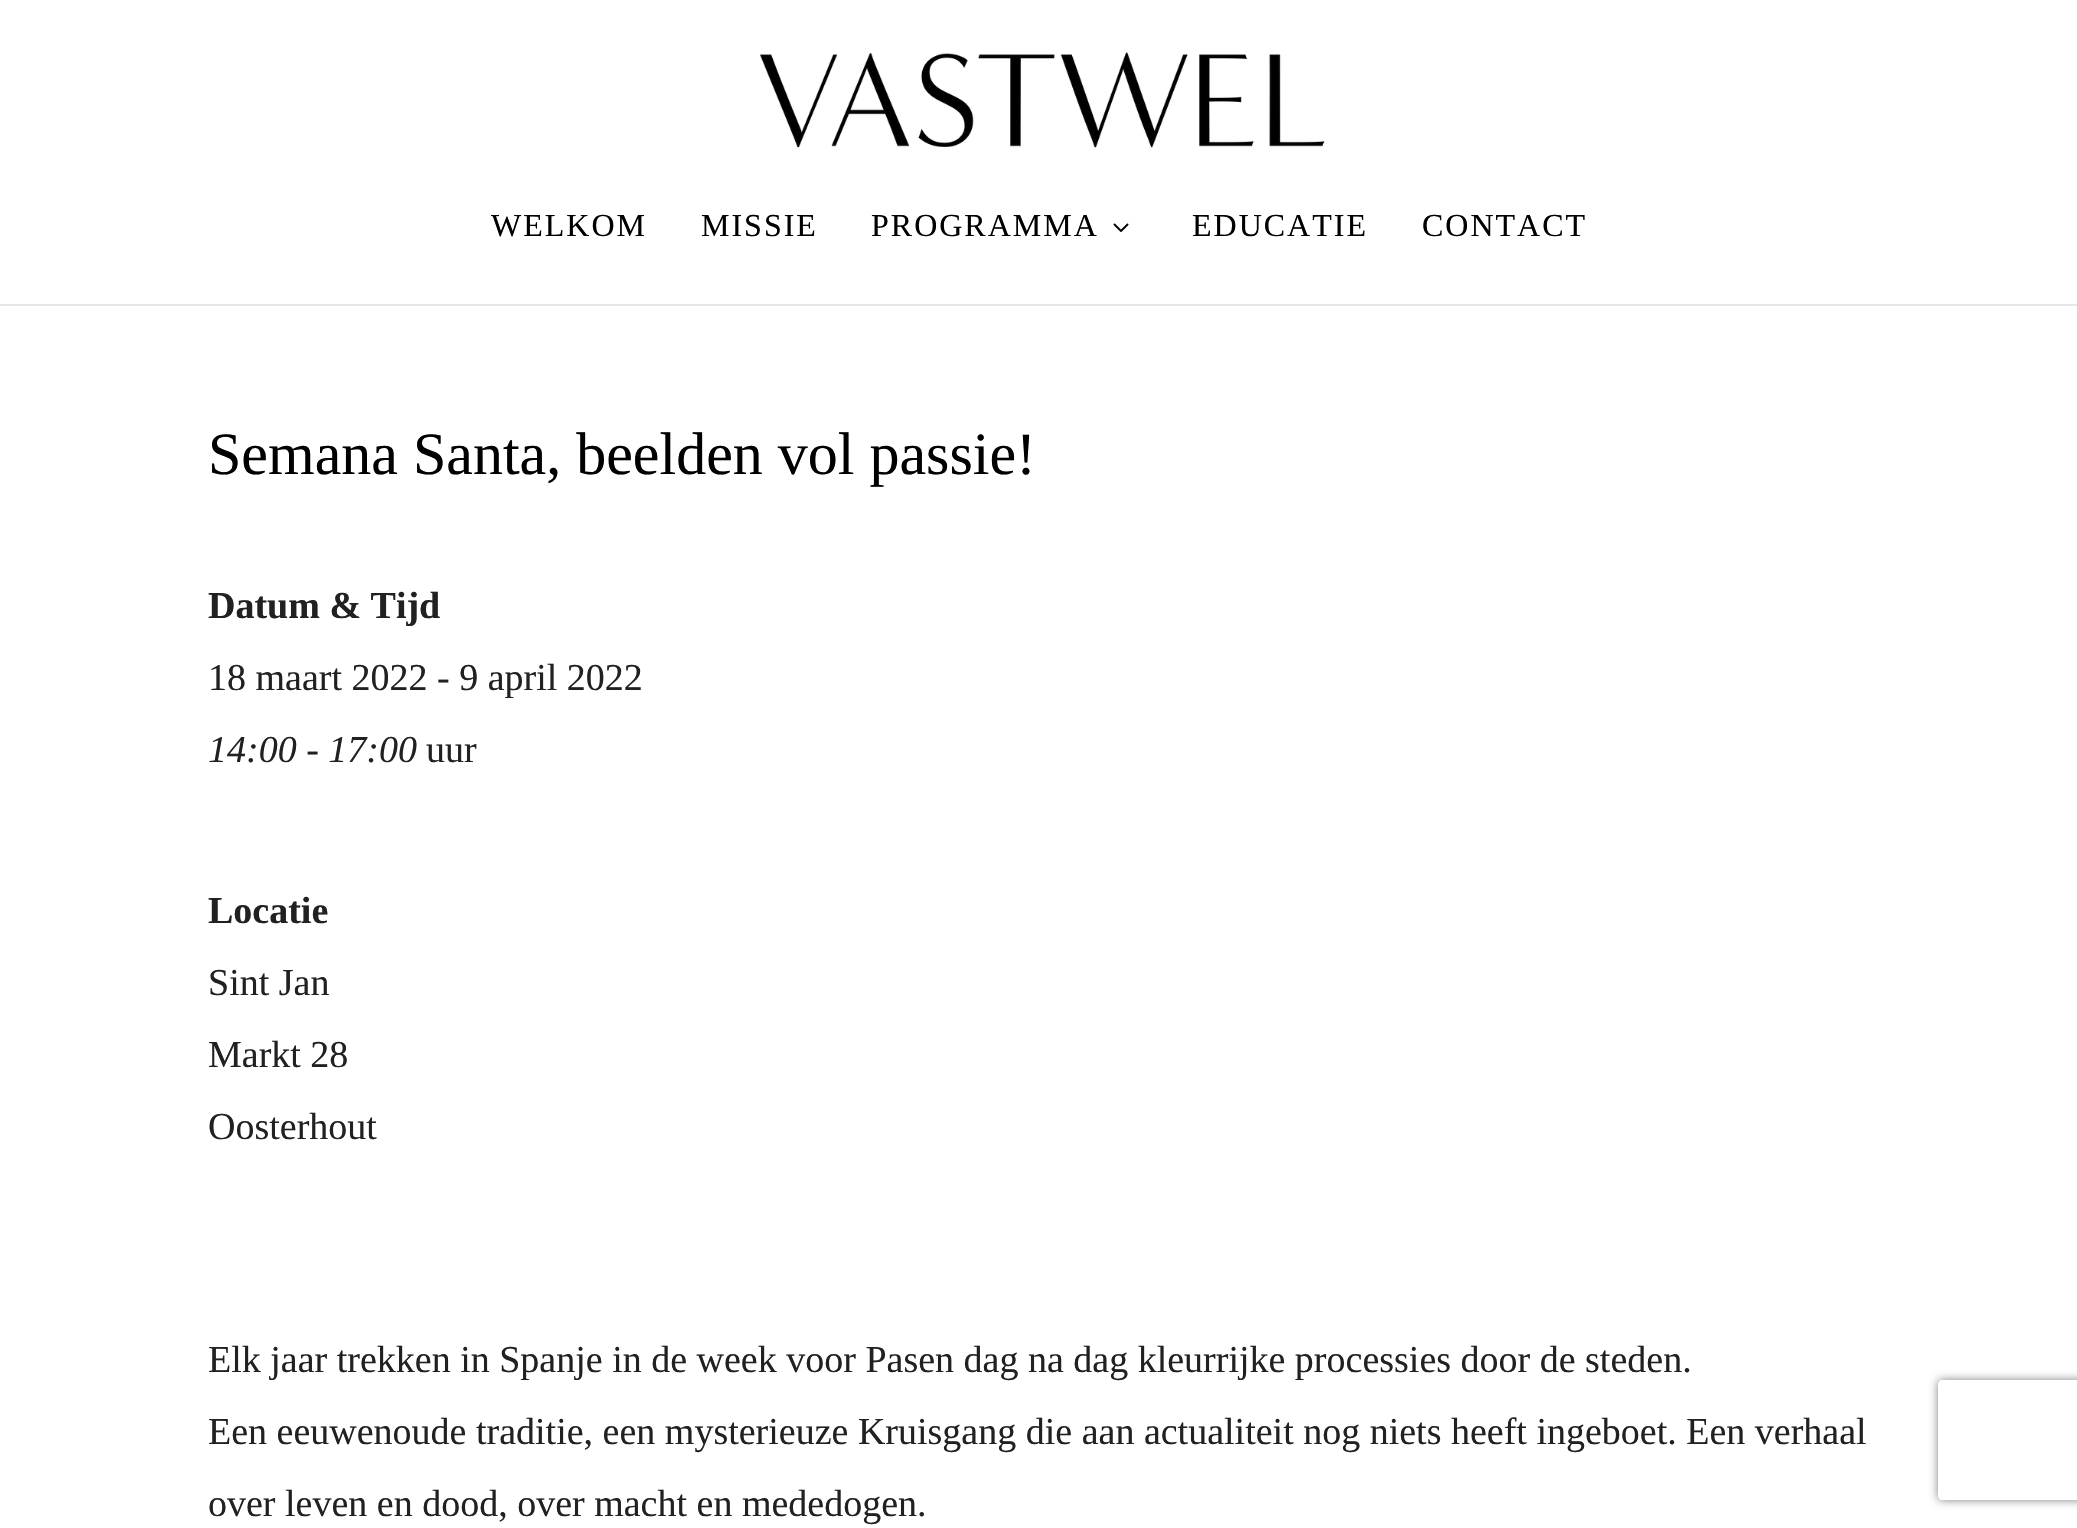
#include "include/core/SkBlurTypes.h"
#include "include/core/SkCanvas.h"
#include "include/core/SkData.h"
#include "include/core/SkFont.h"
#include "include/core/SkFontMgr.h"
#include "include/core/SkImage.h"
#include "include/core/SkMaskFilter.h"
#include "include/core/SkPaint.h"
#include "include/core/SkPathBuilder.h"
#include "include/core/SkTextBlob.h"
#include "include/effects/SkDashPathEffect.h"
#include "include/effects/SkGradientShader.h"
#include "include/utils/SkParsePath.h"

extern sk_sp<SkFontMgr> fontMgr;

void draw(SkCanvas* canvas) {
  SkPaint p;
  p.setAntiAlias(true);
  auto spacedText = [&](const char* s, float x, float y, const SkFont& font, const SkPaint& ink, float letter, float word) {
    std::vector<SkGlyphID> glyphs(font.countText(s, strlen(s), SkTextEncoding::kUTF8));
    std::vector<float> xs(glyphs.size());
    font.textToGlyphs(s, strlen(s), SkTextEncoding::kUTF8, glyphs);
    font.getXPos(glyphs, xs, x);
    float extra = 0;
    for (size_t i = 0; i < glyphs.size(); i++) {
      xs[i] += extra;
      extra += letter + word * (glyphs[i] == font.unicharToGlyph(' '));
    }
    canvas->drawTextBlob(SkTextBlob::MakeFromPosHGlyphs(glyphs, xs, y, font), 0, 0, ink);
  };
  canvas->clear(SK_ColorWHITE);
  p.setColor(SkColorSetRGB(230, 230, 230));
  canvas->drawRect(SkRect::MakeLTRB(0, 304, 2077, 306), p);
  canvas->drawImageRect(SkImages::DeferredFromEncodedData(SkData::MakeFromFileName("images/1.png")), SkRect::MakeLTRB(760, 52, 1325, 148), SkSamplingOptions());
  canvas->drawImageRect(SkImages::DeferredFromEncodedData(SkData::MakeFromFileName("images/2.png")), SkRect::MakeLTRB(1113, 223, 1129, 232), SkSamplingOptions());
  canvas->save();
  canvas->clipPath(SkPathBuilder(SkPathFillType::kEvenOdd).moveTo(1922, 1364).lineTo(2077, 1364).lineTo(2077, 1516).lineTo(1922, 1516).close().moveTo(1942, 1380).lineTo(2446, 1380).cubicTo(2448, 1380, 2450, 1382, 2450, 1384).lineTo(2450, 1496).cubicTo(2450, 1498, 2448, 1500, 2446, 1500).lineTo(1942, 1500).cubicTo(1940, 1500, 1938, 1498, 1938, 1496).lineTo(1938, 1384).cubicTo(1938, 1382, 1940, 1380, 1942, 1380).close().detach(), true);
  p.setColor(SkColorSetRGB(128, 128, 128));
  p.setMaskFilter(SkMaskFilter::MakeBlur(kNormal_SkBlurStyle, 5));
  canvas->drawRoundRect(SkRect::MakeLTRB(1938, 1380, 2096, 1500), 4, 4, p);
  p.setMaskFilter(nullptr);
  canvas->restore();
  SkFont font1(fontMgr->matchFamilyStyle("Tinos", SkFontStyle::Normal()), 32);
  font1.setSubpixel(true);
  p.setColor(SK_ColorBLACK);
  spacedText("WELKOM", 491, 236, font1, p, 2, 0);
  spacedText("MISSIE", 701, 236, font1, p, 2, 0);
  spacedText("PROGRAMMA", 871, 236, font1, p, 2, 0);
  spacedText("EDUCATIE", 1192, 236, font1, p, 2, 0);
  spacedText("CONTACT", 1422, 236, font1, p, 2, 0);
  SkFont font2(fontMgr->matchFamilyStyle("Tinos", SkFontStyle::Normal()), 60);
  font2.setSubpixel(true);
  canvas->drawString("Semana Santa, beelden vol passie!", 208, 474, font2, p);
  SkFont font3(fontMgr->matchFamilyStyle("Tinos", SkFontStyle::Bold()), 38);
  font3.setSubpixel(true);
  p.setColor(SkColorSetRGB(33, 33, 33));
  canvas->drawString("Datum & Tijd", 208, 618, font3, p);
  SkFont font4(fontMgr->matchFamilyStyle("Tinos", SkFontStyle::Normal()), 38);
  font4.setSubpixel(true);
  canvas->drawString("18 maart 2022 - 9 april 2022", 208, 690, font4, p);
  SkFont font5(fontMgr->matchFamilyStyle("Tinos", SkFontStyle::Italic()), 38);
  font5.setSubpixel(true);
  canvas->drawString("14:00 - 17:00", 208, 762, font5, p);
  canvas->drawString("uur", 426, 762, font4, p);
  canvas->drawString("Locatie", 208, 923, font3, p);
  canvas->drawString("Sint Jan", 208, 995, font4, p);
  canvas->drawString("Markt 28", 208, 1067, font4, p);
  canvas->drawString("Oosterhout", 208, 1139, font4, p);
  canvas->drawString("Elk jaar trekken in Spanje in de week voor Pasen dag na dag kleurrijke processies door de steden.", 208, 1372, font4, p);
  canvas->drawString("Een eeuwenoude traditie, een mysterieuze Kruisgang die aan actualiteit nog niets heeft ingeboet. Een verhaal", 208, 1444, font4, p);
  canvas->drawString("over leven en dood, over macht en mededogen.", 208, 1516, font4, p);
}
